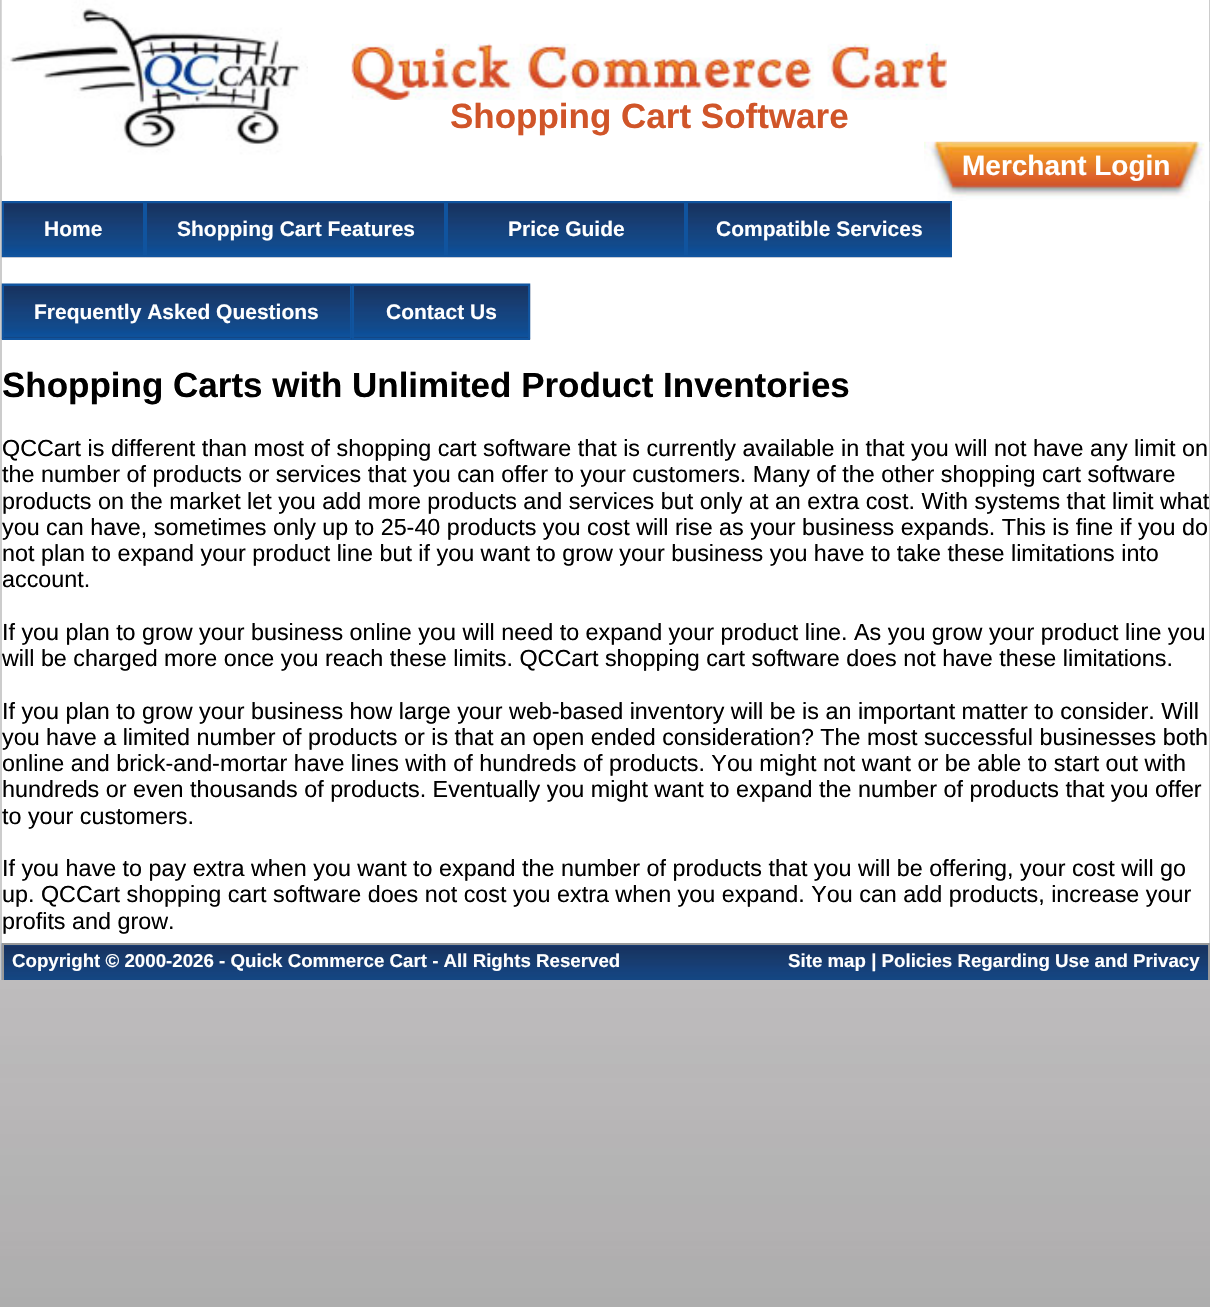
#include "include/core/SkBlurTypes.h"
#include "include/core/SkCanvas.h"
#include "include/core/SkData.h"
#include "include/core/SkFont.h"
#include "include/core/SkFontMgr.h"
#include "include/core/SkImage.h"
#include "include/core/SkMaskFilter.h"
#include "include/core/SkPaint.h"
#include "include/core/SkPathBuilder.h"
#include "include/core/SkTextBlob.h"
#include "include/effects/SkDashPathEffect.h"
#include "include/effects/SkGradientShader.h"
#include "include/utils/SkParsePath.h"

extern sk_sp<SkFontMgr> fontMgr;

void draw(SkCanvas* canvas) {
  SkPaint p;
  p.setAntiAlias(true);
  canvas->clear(SK_ColorWHITE);
  canvas->drawImageRect(SkImages::DeferredFromEncodedData(SkData::MakeFromFileName("images/1.png")), SkRect::MakeLTRB(0, 980, 1210, 1307), SkSamplingOptions());
  p.setColor(SkColorSetRGB(204, 204, 204));
  canvas->drawRect(SkRect::MakeLTRB(1209, 0, 1210, 943), p);
  canvas->drawRect(SkRect::MakeLTRB(0, 0, 2, 980), p);
  canvas->drawImageRect(SkImages::DeferredFromEncodedData(SkData::MakeFromFileName("images/2.png")), SkRect::MakeLTRB(1, 0, 308, 156), SkSamplingOptions());
  canvas->drawImageRect(SkImages::DeferredFromEncodedData(SkData::MakeFromFileName("images/3.png")), SkRect::MakeLTRB(351, 43, 947, 100), SkSamplingOptions());
  canvas->drawImageRect(SkImages::DeferredFromEncodedData(SkData::MakeFromFileName("images/4.png")), SkRect::MakeLTRB(924, 141, 1210, 201), SkSamplingOptions());
  canvas->drawImageRect(SkImages::DeferredFromEncodedData(SkData::MakeFromFileName("images/5.png")), SkRect::MakeLTRB(1, 201, 146, 258), SkSamplingOptions());
  p.setStyle(SkPaint::kStroke_Style);
  p.setStrokeWidth(2);
  p.setColor(SkColorSetRGB(16, 84, 159));
  canvas->drawRect(SkRect::MakeLTRB(3, 202, 144, 256), p);
  canvas->drawImageRect(SkImages::DeferredFromEncodedData(SkData::MakeFromFileName("images/6.png")), SkRect::MakeLTRB(145, 203, 447, 258), SkSamplingOptions());
  canvas->drawRect(SkRect::MakeLTRB(146, 202, 445, 256), p);
  canvas->drawImageRect(SkImages::DeferredFromEncodedData(SkData::MakeFromFileName("images/7.png")), SkRect::MakeLTRB(446, 203, 686, 258), SkSamplingOptions());
  canvas->drawRect(SkRect::MakeLTRB(447, 202, 685, 256), p);
  canvas->drawImageRect(SkImages::DeferredFromEncodedData(SkData::MakeFromFileName("images/8.png")), SkRect::MakeLTRB(686, 203, 952, 258), SkSamplingOptions());
  canvas->drawRect(SkRect::MakeLTRB(687, 202, 951, 256), p);
  canvas->drawImageRect(SkImages::DeferredFromEncodedData(SkData::MakeFromFileName("images/9.png")), SkRect::MakeLTRB(1, 283, 352, 340), SkSamplingOptions());
  canvas->drawRect(SkRect::MakeLTRB(3, 285, 351, 339), p);
  canvas->drawImageRect(SkImages::DeferredFromEncodedData(SkData::MakeFromFileName("images/10.png")), SkRect::MakeLTRB(351, 283, 531, 340), SkSamplingOptions());
  canvas->drawRect(SkRect::MakeLTRB(353, 285, 529, 339), p);
  canvas->drawImageRect(SkImages::DeferredFromEncodedData(SkData::MakeFromFileName("images/11.png")), SkRect::MakeLTRB(1, 943, 1208, 980), SkSamplingOptions());
  p.setStyle(SkPaint::kFill_Style);
  p.setColor(SkColorSetRGB(153, 153, 153));
  canvas->drawRect(SkRect::MakeLTRB(2, 943, 1209, 945), p);
  canvas->drawRect(SkRect::MakeLTRB(1208, 943, 1210, 980), p);
  canvas->drawRect(SkRect::MakeLTRB(2, 943, 4, 980), p);
  SkFont font1(fontMgr->matchFamilyStyle("Liberation Sans", SkFontStyle::Bold()), 35);
  font1.setSubpixel(true);
  p.setColor(SkColorSetRGB(208, 85, 41));
  canvas->drawString("Shopping Cart Software", 450, 128, font1, p);
  SkFont font2(fontMgr->matchFamilyStyle("Liberation Sans", SkFontStyle::Bold()), 28);
  font2.setSubpixel(true);
  p.setColor(SK_ColorWHITE);
  canvas->drawString("Merchant Login", 962, 175, font2, p);
  SkFont font3(fontMgr->matchFamilyStyle("Liberation Sans", SkFontStyle::Bold()), 21);
  font3.setSubpixel(true);
  canvas->drawString("Home", 44, 236, font3, p);
  canvas->drawString("Shopping Cart Features", 177, 236, font3, p);
  canvas->drawString("Price Guide", 508, 236, font3, p);
  canvas->drawString("Compatible Services", 716, 236, font3, p);
  canvas->drawString("Frequently Asked Questions", 34, 319, font3, p);
  canvas->drawString("Contact Us", 386, 319, font3, p);
  p.setColor(SK_ColorBLACK);
  canvas->drawString("Shopping Carts with Unlimited Product Inventories", 2, 397, font1, p);
  SkFont font4(fontMgr->matchFamilyStyle("Liberation Sans", SkFontStyle::Normal()), 23.33f);
  font4.setSubpixel(true);
  canvas->drawString("QCCart is different than most of shopping cart software that is currently available in that you will not have any limit on", 2, 456, font4, p);
  canvas->drawString("the number of products or services that you can offer to your customers. Many of the other shopping cart software", 2, 482, font4, p);
  canvas->drawString("products on the market let you add more products and services but only at an extra cost. With systems that limit what", 2, 509, font4, p);
  canvas->drawString("you can have, sometimes only up to 25-40 products you cost will rise as your business expands. This is fine if you do", 2, 535, font4, p);
  canvas->drawString("not plan to expand your product line but if you want to grow your business you have to take these limitations into", 2, 561, font4, p);
  canvas->drawString("account.", 2, 587, font4, p);
  canvas->drawString("If you plan to grow your business online you will need to expand your product line. As you grow your product line you", 2, 640, font4, p);
  canvas->drawString("will be charged more once you reach these limits. QCCart shopping cart software does not have these limitations.", 2, 666, font4, p);
  canvas->drawString("If you plan to grow your business how large your web-based inventory will be is an important matter to consider. Will", 2, 719, font4, p);
  canvas->drawString("you have a limited number of products or is that an open ended consideration? The most successful businesses both", 2, 745, font4, p);
  canvas->drawString("online and brick-and-mortar have lines with of hundreds of products. You might not want or be able to start out with", 2, 771, font4, p);
  canvas->drawString("hundreds or even thousands of products. Eventually you might want to expand the number of products that you offer", 2, 797, font4, p);
  canvas->drawString("to your customers.", 2, 824, font4, p);
  canvas->drawString("If you have to pay extra when you want to expand the number of products that you will be offering, your cost will go", 2, 876, font4, p);
  canvas->drawString("up. QCCart shopping cart software does not cost you extra when you expand. You can add products, increase your", 2, 902, font4, p);
  canvas->drawString("profits and grow.", 2, 929, font4, p);
  SkFont font5(fontMgr->matchFamilyStyle("Liberation Sans", SkFontStyle::Bold()), 18.7f);
  font5.setSubpixel(true);
  p.setColor(SK_ColorWHITE);
  canvas->drawString("Copyright © 2000-2026 - Quick Commerce Cart - All Rights Reserved", 12, 967, font5, p);
  canvas->drawString("Site map | Policies Regarding Use and Privacy", 788, 967, font5, p);
}
